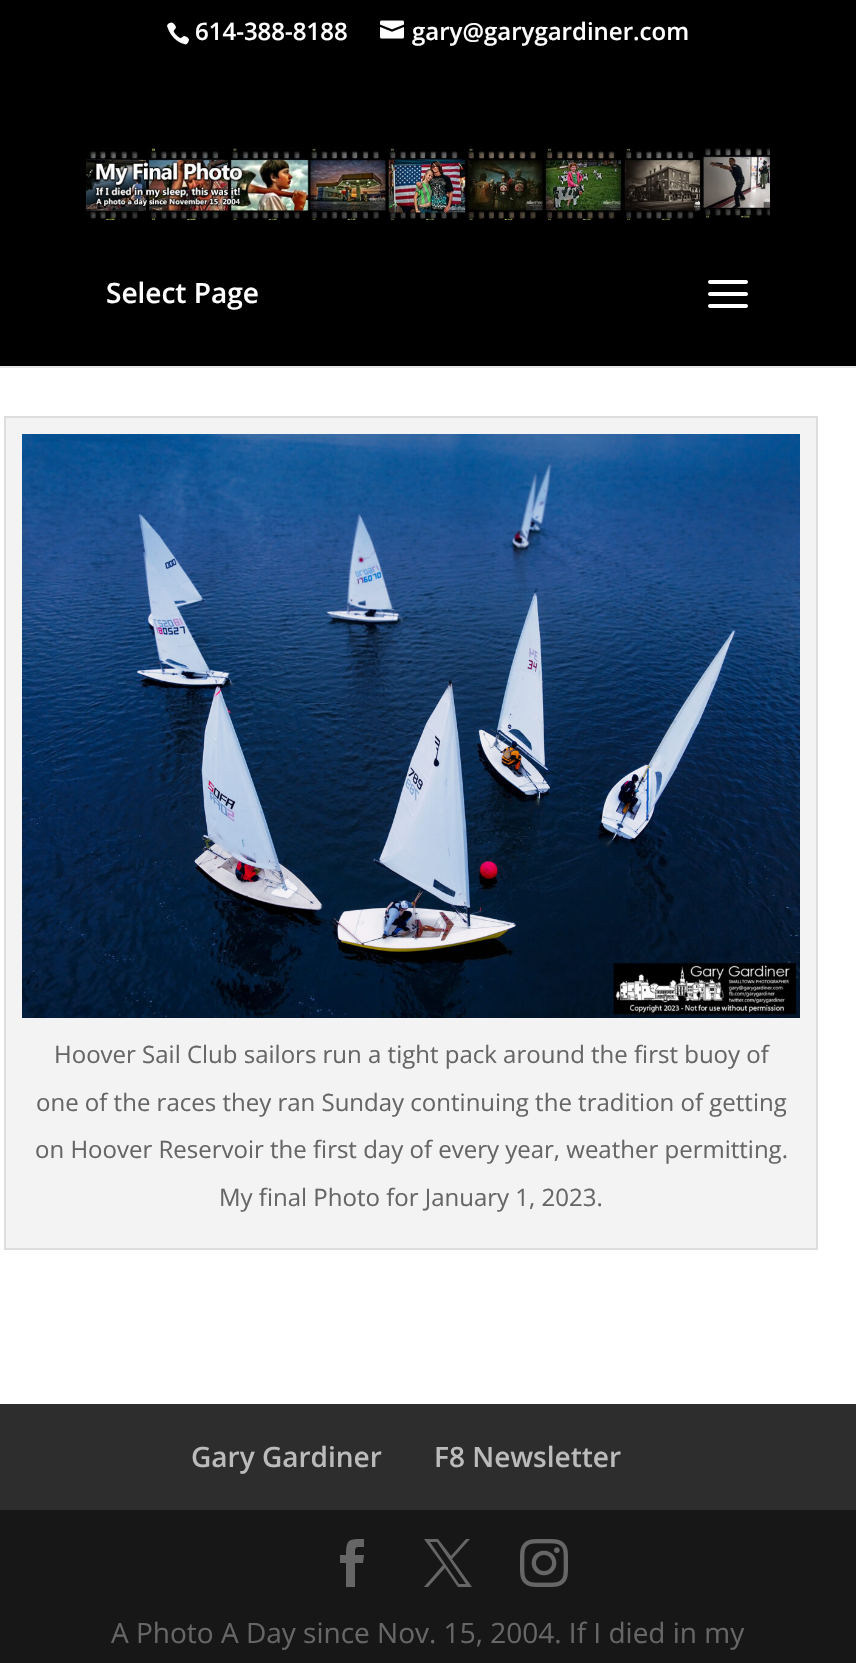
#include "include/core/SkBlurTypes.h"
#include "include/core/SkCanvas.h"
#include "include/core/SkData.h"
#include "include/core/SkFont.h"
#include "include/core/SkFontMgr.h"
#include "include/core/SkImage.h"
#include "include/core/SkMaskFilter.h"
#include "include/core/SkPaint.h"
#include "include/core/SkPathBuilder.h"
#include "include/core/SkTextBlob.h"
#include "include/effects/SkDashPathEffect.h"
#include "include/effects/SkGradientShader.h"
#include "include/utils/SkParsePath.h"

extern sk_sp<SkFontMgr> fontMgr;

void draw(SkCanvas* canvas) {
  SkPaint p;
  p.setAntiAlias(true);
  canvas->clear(SK_ColorWHITE);
  p.setColor(SK_ColorBLACK);
  canvas->drawRect(SkRect::MakeLTRB(0, 0, 856, 366), p);
  canvas->drawImageRect(SkImages::DeferredFromEncodedData(SkData::MakeFromFileName("images/1.png")), SkRect::MakeLTRB(167, 22, 189, 45), SkSamplingOptions());
  canvas->drawImageRect(SkImages::DeferredFromEncodedData(SkData::MakeFromFileName("images/2.png")), SkRect::MakeLTRB(380, 20, 404, 39), SkSamplingOptions());
  p.setColor(SkColorSetRGB(230, 230, 230));
  canvas->drawRect(SkRect::MakeLTRB(0, 366, 856, 368), p);
  canvas->drawImageRect(SkImages::DeferredFromEncodedData(SkData::MakeFromFileName("images/3.png")), SkRect::MakeLTRB(86, 148, 770, 220), SkSamplingOptions());
  canvas->drawImageRect(SkImages::DeferredFromEncodedData(SkData::MakeFromFileName("images/4.png")), SkRect::MakeLTRB(708, 280, 748, 308), SkSamplingOptions());
  p.setColor(SkColorSetRGB(243, 243, 243));
  canvas->drawRect(SkRect::MakeLTRB(5, 417, 817, 1249), p);
  p.setStyle(SkPaint::kStroke_Style);
  p.setStrokeWidth(2);
  p.setColor(SkColorSetRGB(221, 221, 221));
  canvas->drawRect(SkRect::MakeLTRB(5, 417, 817, 1249), p);
  canvas->drawImageRect(SkImages::DeferredFromEncodedData(SkData::MakeFromFileName("images/5.png")), SkRect::MakeLTRB(22, 434, 800, 1018), SkSamplingOptions());
  p.setStyle(SkPaint::kFill_Style);
  p.setColor(SkColorSetRGB(45, 45, 45));
  canvas->drawRect(SkRect::MakeLTRB(0, 1404, 856, 1510), p);
  p.setColor(SkColorSetRGB(23, 23, 23));
  canvas->drawRect(SkRect::MakeLTRB(0, 1510, 856, 1663), p);
  p.setColor(SkColorSetRGB(102, 102, 102));
  canvas->drawPath(SkPathBuilder().moveTo(346, 1587).lineTo(355, 1587).lineTo(355, 1563).lineTo(363, 1563).lineTo(364, 1555).lineTo(355, 1555).cubicTo(355, 1546, 355, 1547, 364, 1547).lineTo(364, 1539).cubicTo(349, 1539, 346, 1539, 346, 1555).lineTo(340, 1555).lineTo(340, 1563).lineTo(346, 1563).close().detach(), p);
  canvas->drawPath(SkPathBuilder().moveTo(424, 1539).lineTo(443, 1565).lineTo(424, 1587).lineTo(428, 1587).lineTo(445, 1568).lineTo(458, 1587).lineTo(472, 1587).lineTo(452, 1559).lineTo(470, 1539).lineTo(466, 1539).lineTo(451, 1556).lineTo(438, 1539).close().moveTo(430, 1542).lineTo(437, 1542).lineTo(466, 1584).lineTo(459, 1584).close().detach(), p);
  canvas->drawImageRect(SkImages::DeferredFromEncodedData(SkData::MakeFromFileName("images/6.png")), SkRect::MakeLTRB(520, 1539, 568, 1587), SkSamplingOptions());
  SkFont font1(fontMgr->matchFamilyStyle("Open Sans", SkFontStyle(600, SkFontStyle::kNormal_Width, SkFontStyle::kUpright_Slant)), 24);
  font1.setSubpixel(true);
  p.setColor(SK_ColorWHITE);
  canvas->drawString("614-388-8188", 195, 40, font1, p);
  canvas->drawString("gary@garygardiner.com", 412, 40, font1, p);
  SkFont font2(fontMgr->matchFamilyStyle("Open Sans", SkFontStyle(600, SkFontStyle::kNormal_Width, SkFontStyle::kUpright_Slant)), 28);
  font2.setSubpixel(true);
  canvas->drawString("Select Page", 106, 303, font2, p);
  SkFont font3(fontMgr->matchFamilyStyle("Open Sans", SkFontStyle::Normal()), 24);
  font3.setSubpixel(true);
  p.setColor(SkColorSetRGB(102, 102, 102));
  canvas->drawString("Hoover Sail Club sailors run a tight pack around the first buoy of", 54, 1063, font3, p);
  canvas->drawString("one of the races they ran Sunday continuing the tradition of getting", 36, 1111, font3, p);
  canvas->drawString("on Hoover Reservoir the first day of every year, weather permitting.", 35, 1158, font3, p);
  canvas->drawString("My final Photo for January 1, 2023.", 219, 1206, font3, p);
  p.setColor(SkColorSetRGB(187, 187, 187));
  canvas->drawString("Gary Gardiner", 191, 1467, font2, p);
  canvas->drawString("F8 Newsletter", 434, 1467, font2, p);
  SkFont font4(fontMgr->matchFamilyStyle("Open Sans", SkFontStyle::Normal()), 28);
  font4.setSubpixel(true);
  p.setColor(SkColorSetRGB(102, 102, 102));
  canvas->drawString("A Photo A Day since Nov. 15, 2004. If I died in my", 111, 1643, font4, p);
}
